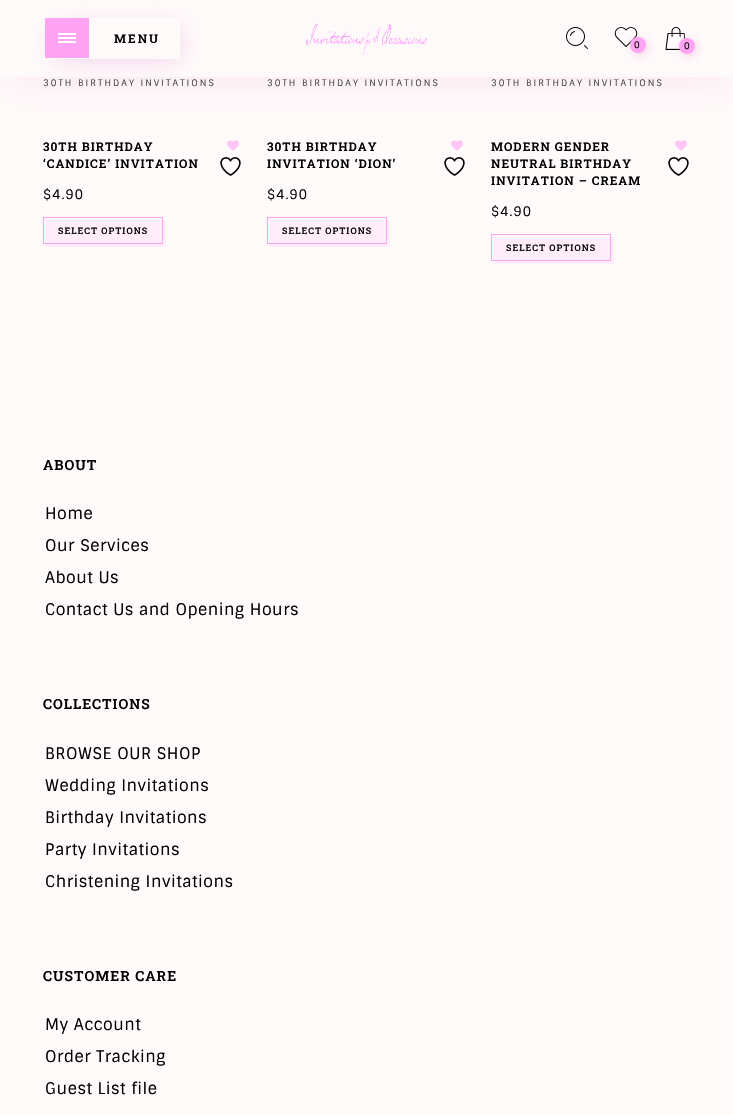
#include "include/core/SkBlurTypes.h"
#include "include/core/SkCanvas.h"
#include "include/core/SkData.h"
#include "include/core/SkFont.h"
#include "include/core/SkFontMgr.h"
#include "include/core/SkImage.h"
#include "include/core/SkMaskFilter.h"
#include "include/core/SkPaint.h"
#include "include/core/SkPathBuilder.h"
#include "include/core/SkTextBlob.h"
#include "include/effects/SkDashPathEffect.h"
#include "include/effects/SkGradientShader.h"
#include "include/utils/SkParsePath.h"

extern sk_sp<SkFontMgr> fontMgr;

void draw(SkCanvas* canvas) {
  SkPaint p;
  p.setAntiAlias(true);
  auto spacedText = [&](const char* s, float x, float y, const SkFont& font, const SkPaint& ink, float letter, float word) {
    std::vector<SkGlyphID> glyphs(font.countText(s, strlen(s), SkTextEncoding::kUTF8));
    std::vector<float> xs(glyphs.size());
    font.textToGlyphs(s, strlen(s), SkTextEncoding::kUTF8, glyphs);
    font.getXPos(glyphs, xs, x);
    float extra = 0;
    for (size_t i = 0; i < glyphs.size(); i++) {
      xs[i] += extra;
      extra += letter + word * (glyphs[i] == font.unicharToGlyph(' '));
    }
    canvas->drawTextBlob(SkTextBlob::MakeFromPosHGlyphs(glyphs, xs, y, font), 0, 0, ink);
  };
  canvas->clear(SkColorSetRGB(255, 250, 250));
  canvas->drawImageRect(SkImages::DeferredFromEncodedData(SkData::MakeFromFileName("images/5.png")), SkRect::MakeLTRB(227, 140, 239, 151), SkSamplingOptions());
  canvas->drawImageRect(SkImages::DeferredFromEncodedData(SkData::MakeFromFileName("images/5.png")), SkRect::MakeLTRB(451, 140, 463, 151), SkSamplingOptions());
  canvas->drawImageRect(SkImages::DeferredFromEncodedData(SkData::MakeFromFileName("images/5.png")), SkRect::MakeLTRB(675, 140, 687, 151), SkSamplingOptions());
  p.setColor(SkColorSetARGB(51, 217, 139, 206));
  p.setMaskFilter(SkMaskFilter::MakeBlur(kNormal_SkBlurStyle, 22.5f));
  canvas->drawRect(SkRect::MakeLTRB(10, 10, 733, 77), p);
  p.setMaskFilter(nullptr);
  p.setColor(SkColorSetRGB(255, 250, 250));
  canvas->drawRect(SkRect::MakeLTRB(0, 0, 733, 77), p);
  canvas->save();
  canvas->clipPath(SkPathBuilder(SkPathFillType::kEvenOdd).moveTo(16, 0).lineTo(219, 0).lineTo(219, 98).lineTo(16, 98).close().moveTo(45, 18).lineTo(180, 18).lineTo(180, 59).lineTo(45, 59).close().detach(), true);
  p.setColor(SkColorSetARGB(102, 217, 139, 206));
  p.setMaskFilter(SkMaskFilter::MakeBlur(kNormal_SkBlurStyle, 12.5f));
  canvas->drawRect(SkRect::MakeLTRB(55, 28, 180, 59), p);
  p.setMaskFilter(nullptr);
  canvas->restore();
  p.setColor(SkColorSetRGB(255, 164, 242));
  canvas->drawRect(SkRect::MakeLTRB(45, 18, 89, 58), p);
  p.setColor(SK_ColorWHITE);
  canvas->drawRect(SkRect::MakeLTRB(58, 37, 76, 39), p);
  canvas->drawRect(SkRect::MakeLTRB(58, 33, 76, 35), p);
  canvas->drawRect(SkRect::MakeLTRB(58, 41, 76, 43), p);
  canvas->drawImageRect(SkImages::DeferredFromEncodedData(SkData::MakeFromFileName("images/1.png")), SkRect::MakeLTRB(306, 23, 427, 55), SkSamplingOptions());
  canvas->drawImageRect(SkImages::DeferredFromEncodedData(SkData::MakeFromFileName("images/2.png")), SkRect::MakeLTRB(566, 27, 588, 49), SkSamplingOptions());
  canvas->drawImageRect(SkImages::DeferredFromEncodedData(SkData::MakeFromFileName("images/3.png")), SkRect::MakeLTRB(614, 27, 638, 47), SkSamplingOptions());
  p.setColor(SkColorSetARGB(102, 217, 139, 206));
  p.setMaskFilter(SkMaskFilter::MakeBlur(kNormal_SkBlurStyle, 5));
  canvas->drawRoundRect(SkRect::MakeLTRB(632, 39, 648, 55), 8, 8, p);
  p.setMaskFilter(nullptr);
  p.setColor(SkColorSetRGB(255, 164, 242));
  canvas->drawCircle(638, 45, 8, p);
  canvas->drawImageRect(SkImages::DeferredFromEncodedData(SkData::MakeFromFileName("images/4.png")), SkRect::MakeLTRB(665, 27, 686, 50), SkSamplingOptions());
  p.setColor(SkColorSetARGB(102, 217, 139, 206));
  p.setMaskFilter(SkMaskFilter::MakeBlur(kNormal_SkBlurStyle, 5));
  canvas->drawRoundRect(SkRect::MakeLTRB(681, 40, 697, 56), 8, 8, p);
  p.setMaskFilter(nullptr);
  p.setColor(SkColorSetRGB(255, 164, 242));
  canvas->drawCircle(687, 46, 8, p);
  canvas->drawImageRect(SkImages::DeferredFromEncodedData(SkData::MakeFromFileName("images/6.png")), SkRect::MakeLTRB(220, 157, 241, 176), SkSamplingOptions());
  p.setColor(SkColorSetRGB(255, 237, 249));
  canvas->drawPath(SkPathBuilder().moveTo(46, 244).lineTo(46, 247).lineTo(166, 247).lineTo(166, 220).lineTo(163, 220).lineTo(163, 244).close().detach(), p);
  canvas->drawRect(SkRect::MakeLTRB(46, 220, 162, 243), p);
  p.setStyle(SkPaint::kStroke_Style);
  p.setStrokeWidth(1);
  p.setColor(SkColorSetRGB(255, 164, 242));
  canvas->drawRect(SkRect::MakeLTRB(43.5f, 217.5f, 162.5f, 243.5f), p);
  canvas->drawImageRect(SkImages::DeferredFromEncodedData(SkData::MakeFromFileName("images/6.png")), SkRect::MakeLTRB(444, 157, 465, 176), SkSamplingOptions());
  p.setStyle(SkPaint::kFill_Style);
  p.setColor(SkColorSetRGB(255, 237, 249));
  canvas->drawPath(SkPathBuilder().moveTo(270, 244).lineTo(270, 247).lineTo(390, 247).lineTo(390, 220).lineTo(387, 220).lineTo(387, 244).close().detach(), p);
  canvas->drawRect(SkRect::MakeLTRB(270, 220, 386, 243), p);
  p.setStyle(SkPaint::kStroke_Style);
  p.setColor(SkColorSetRGB(255, 164, 242));
  canvas->drawRect(SkRect::MakeLTRB(267.5f, 217.5f, 386.5f, 243.5f), p);
  canvas->drawImageRect(SkImages::DeferredFromEncodedData(SkData::MakeFromFileName("images/6.png")), SkRect::MakeLTRB(668, 157, 689, 176), SkSamplingOptions());
  p.setStyle(SkPaint::kFill_Style);
  p.setColor(SkColorSetRGB(255, 237, 249));
  canvas->drawPath(SkPathBuilder().moveTo(494, 261).lineTo(494, 264).lineTo(614, 264).lineTo(614, 237).lineTo(611, 237).lineTo(611, 261).close().detach(), p);
  canvas->drawRect(SkRect::MakeLTRB(494, 237, 610, 260), p);
  p.setStyle(SkPaint::kStroke_Style);
  p.setColor(SkColorSetRGB(255, 164, 242));
  canvas->drawRect(SkRect::MakeLTRB(491.5f, 234.5f, 610.5f, 260.5f), p);
  SkFont font1(fontMgr->matchFamilyStyle("Roboto Slab", SkFontStyle(600, SkFontStyle::kNormal_Width, SkFontStyle::kUpright_Slant)), 12);
  font1.setSubpixel(true);
  p.setStyle(SkPaint::kFill_Style);
  p.setColor(SK_ColorBLACK);
  spacedText("MENU", 114, 43, font1, p, 2, 0);
  SkFont font2(fontMgr->matchFamilyStyle("Sintony", SkFontStyle::Normal()), 9);
  font2.setSubpixel(true);
  spacedText("0", 634, 48, font2, p, 0.5f, 0);
  spacedText("0", 684, 49, font2, p, 0.5f, 0);
  p.setColor(SkColorSetRGB(77, 75, 75));
  spacedText("30TH BIRTHDAY INVITATIONS", 43, 86, font2, p, 2, 0);
  p.setColor(SK_ColorBLACK);
  spacedText("30TH BIRTHDAY", 43, 151, font1, p, 1, 0);
  spacedText("‘CANDICE’ INVITATION", 43, 168, font1, p, 1, 0);
  SkFont font3(fontMgr->matchFamilyStyle("Sintony", SkFontStyle::Normal()), 13);
  font3.setSubpixel(true);
  spacedText("$4.90", 43, 199, font3, p, 1, 0);
  SkFont font4(fontMgr->matchFamilyStyle("Roboto Slab", SkFontStyle(500, SkFontStyle::kNormal_Width, SkFontStyle::kUpright_Slant)), 9);
  font4.setSubpixel(true);
  spacedText("SELECT OPTIONS", 58, 234, font4, p, 1, 0);
  p.setColor(SkColorSetRGB(77, 75, 75));
  spacedText("30TH BIRTHDAY INVITATIONS", 267, 86, font2, p, 2, 0);
  p.setColor(SK_ColorBLACK);
  spacedText("30TH BIRTHDAY", 267, 151, font1, p, 1, 0);
  spacedText("INVITATION ‘DION’", 267, 168, font1, p, 1, 0);
  spacedText("$4.90", 267, 199, font3, p, 1, 0);
  spacedText("SELECT OPTIONS", 282, 234, font4, p, 1, 0);
  p.setColor(SkColorSetRGB(77, 75, 75));
  spacedText("30TH BIRTHDAY INVITATIONS", 491, 86, font2, p, 2, 0);
  p.setColor(SK_ColorBLACK);
  spacedText("MODERN GENDER", 491, 151, font1, p, 1, 0);
  spacedText("NEUTRAL BIRTHDAY", 491, 168, font1, p, 1, 0);
  spacedText("INVITATION – CREAM", 491, 185, font1, p, 1, 0);
  spacedText("$4.90", 491, 216, font3, p, 1, 0);
  spacedText("SELECT OPTIONS", 506, 251, font4, p, 1, 0);
  SkFont font5(fontMgr->matchFamilyStyle("Roboto Slab", SkFontStyle(600, SkFontStyle::kNormal_Width, SkFontStyle::kUpright_Slant)), 14);
  font5.setSubpixel(true);
  spacedText("ABOUT", 43, 470, font5, p, 1, 0);
  SkFont font6(fontMgr->matchFamilyStyle("Sintony", SkFontStyle::Normal()), 16);
  font6.setSubpixel(true);
  spacedText("Home", 45, 519, font6, p, 0.5f, 0);
  spacedText("Our Services", 45, 551, font6, p, 0.5f, 0);
  spacedText("About Us", 45, 583, font6, p, 0.5f, 0);
  spacedText("Contact Us and Opening Hours", 45, 615, font6, p, 0.5f, 0);
  spacedText("COLLECTIONS", 43, 709, font5, p, 1, 0);
  spacedText("BROWSE OUR SHOP", 45, 759, font6, p, 0.5f, 0);
  spacedText("Wedding Invitations", 45, 791, font6, p, 0.5f, 0);
  spacedText("Birthday Invitations", 45, 823, font6, p, 0.5f, 0);
  spacedText("Party Invitations", 45, 855, font6, p, 0.5f, 0);
  spacedText("Christening Invitations", 45, 887, font6, p, 0.5f, 0);
  spacedText("CUSTOMER CARE", 43, 981, font5, p, 1, 0);
  spacedText("My Account", 45, 1030, font6, p, 0.5f, 0);
  spacedText("Order Tracking", 45, 1062, font6, p, 0.5f, 0);
  spacedText("Guest List file", 45, 1094, font6, p, 0.5f, 0);
}
